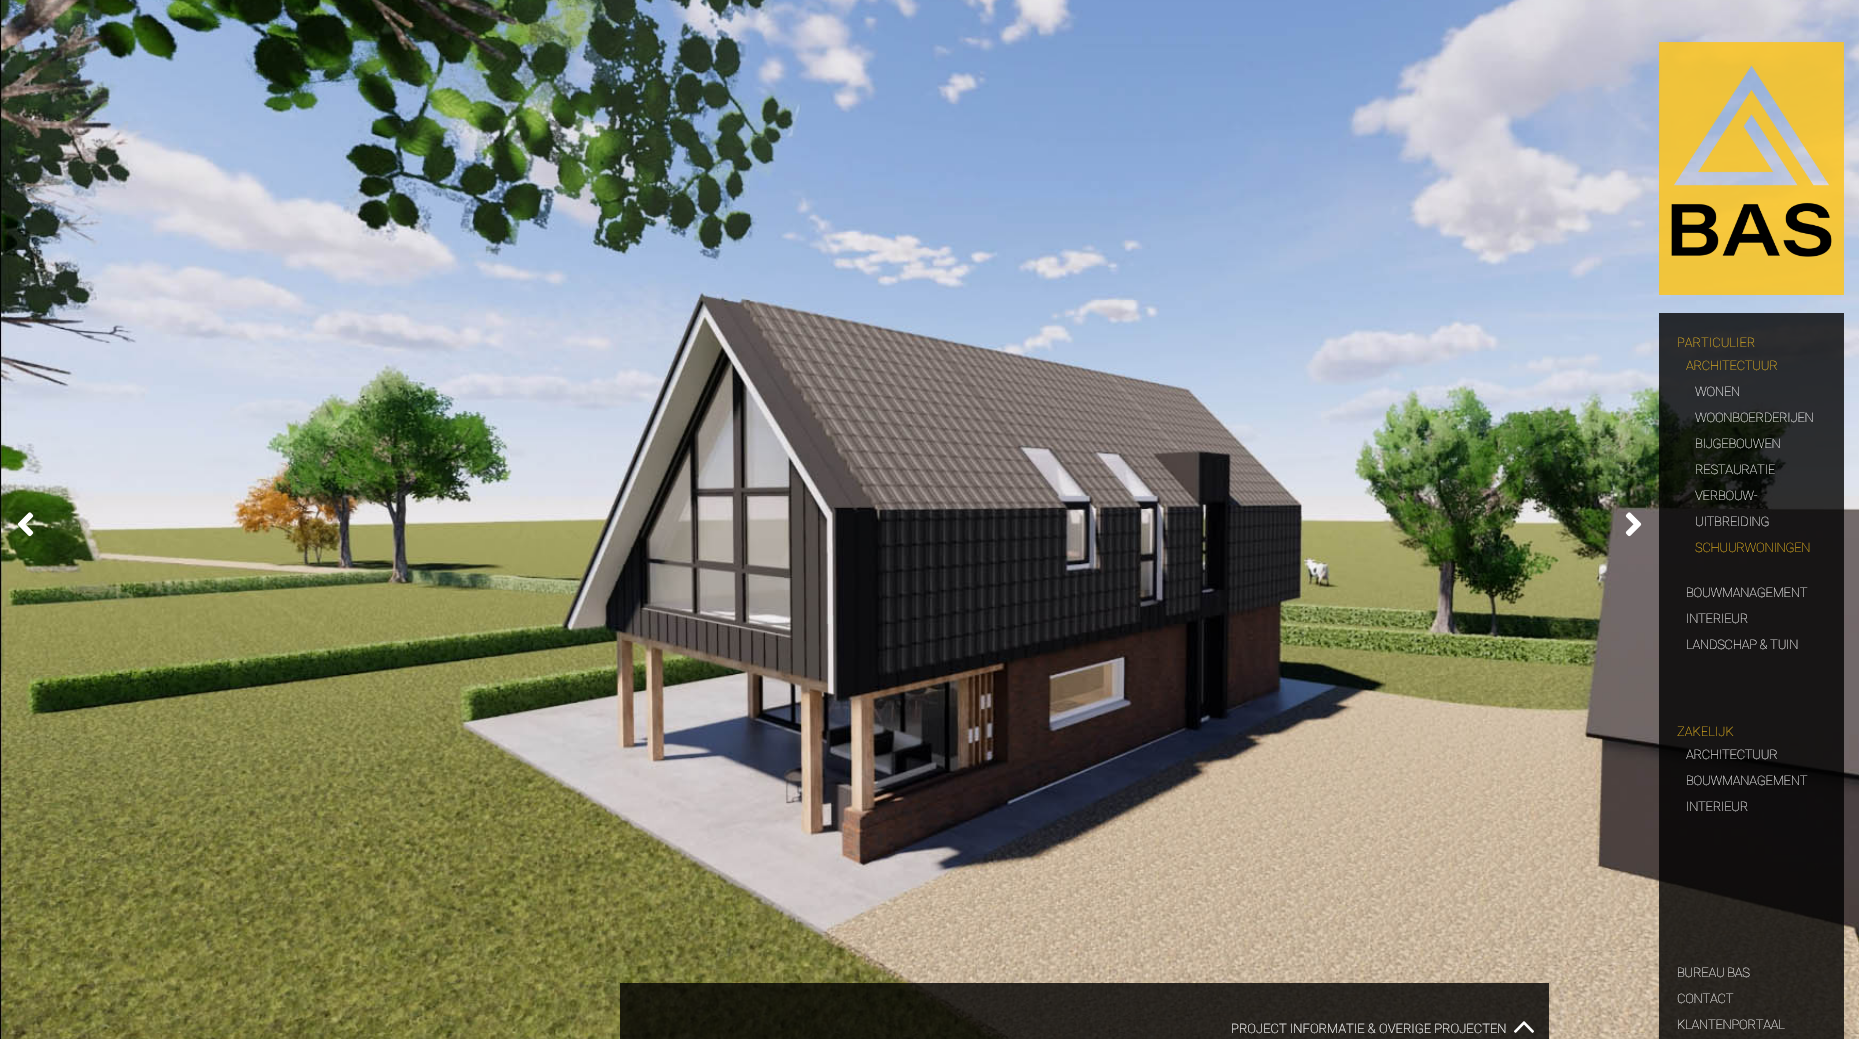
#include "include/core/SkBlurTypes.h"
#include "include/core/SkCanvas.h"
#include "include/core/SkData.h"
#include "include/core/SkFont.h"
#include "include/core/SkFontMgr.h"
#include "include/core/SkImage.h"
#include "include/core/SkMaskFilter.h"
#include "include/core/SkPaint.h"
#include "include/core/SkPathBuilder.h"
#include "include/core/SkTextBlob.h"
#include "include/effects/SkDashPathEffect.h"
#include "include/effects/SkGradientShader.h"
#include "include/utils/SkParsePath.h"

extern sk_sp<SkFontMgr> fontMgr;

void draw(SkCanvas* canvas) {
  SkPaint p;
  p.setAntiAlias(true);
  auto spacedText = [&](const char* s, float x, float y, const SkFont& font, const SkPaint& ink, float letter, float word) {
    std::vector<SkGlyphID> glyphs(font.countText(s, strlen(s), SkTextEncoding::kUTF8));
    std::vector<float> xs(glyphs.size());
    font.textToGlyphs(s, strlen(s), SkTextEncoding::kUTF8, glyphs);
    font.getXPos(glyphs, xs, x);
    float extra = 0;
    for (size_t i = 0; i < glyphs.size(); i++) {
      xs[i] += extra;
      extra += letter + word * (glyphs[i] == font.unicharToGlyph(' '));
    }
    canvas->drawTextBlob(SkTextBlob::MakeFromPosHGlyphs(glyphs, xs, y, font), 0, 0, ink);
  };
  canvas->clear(SK_ColorWHITE);
  canvas->drawImageRect(SkImages::DeferredFromEncodedData(SkData::MakeFromFileName("images/1.png")), SkRect::MakeLTRB(0, 0, 1859, 1039), SkSamplingOptions());
  p.setColor(SkColorSetARGB(204, 0, 0, 0));
  canvas->drawRect(SkRect::MakeLTRB(620, 983, 1549, 1039), p);
  canvas->drawImageRect(SkImages::DeferredFromEncodedData(SkData::MakeFromFileName("images/2.png")), SkRect::MakeLTRB(1514, 1021, 1534, 1033), SkSamplingOptions());
  canvas->drawImageRect(SkImages::DeferredFromEncodedData(SkData::MakeFromFileName("images/3.png")), SkRect::MakeLTRB(1659, 42, 1844, 295), SkSamplingOptions());
  canvas->drawRect(SkRect::MakeLTRB(1659, 313, 1844, 1039), p);
  canvas->drawImageRect(SkImages::DeferredFromEncodedData(SkData::MakeFromFileName("images/4.png")), SkRect::MakeLTRB(17, 512, 1642, 537), SkSamplingOptions());
  canvas->drawImageRect(SkImages::DeferredFromEncodedData(SkData::MakeFromFileName("images/5.png")), SkRect::MakeLTRB(17, 512, 34, 537), SkSamplingOptions());
  canvas->drawImageRect(SkImages::DeferredFromEncodedData(SkData::MakeFromFileName("images/6.png")), SkRect::MakeLTRB(1625, 512, 1642, 537), SkSamplingOptions());
  SkFont font1(fontMgr->matchFamilyStyle("Roboto", SkFontStyle(200, SkFontStyle::kNormal_Width, SkFontStyle::kUpright_Slant)), 13);
  font1.setSubpixel(true);
  p.setColor(SK_ColorWHITE);
  canvas->drawString("PROJECT INFORMATIE & OVERIGE PROJECTEN", 1231, 1033, font1, p);
  SkFont font2(fontMgr->matchFamilyStyle("Roboto", SkFontStyle(100, SkFontStyle::kNormal_Width, SkFontStyle::kUpright_Slant)), 13);
  font2.setSubpixel(true);
  p.setColor(SkColorSetRGB(251, 196, 30));
  canvas->drawString("PARTICULIER", 1677, 347, font2, p);
  spacedText("ARCHITECTUUR", 1686, 370, font2, p, -0.25f, 0);
  p.setColor(SK_ColorWHITE);
  spacedText("WONEN", 1695, 396, font2, p, -0.25f, 0);
  spacedText("WOONBOERDERIJEN", 1695, 422, font2, p, -0.25f, 0);
  spacedText("BIJGEBOUWEN", 1695, 448, font2, p, -0.25f, 0);
  spacedText("RESTAURATIE", 1695, 474, font2, p, -0.25f, 0);
  spacedText("VERBOUW-", 1695, 500, font2, p, -0.25f, 0);
  spacedText("UITBREIDING", 1695, 526, font2, p, -0.25f, 0);
  p.setColor(SkColorSetRGB(251, 196, 30));
  spacedText("SCHUURWONINGEN", 1695, 552, font2, p, -0.25f, 0);
  p.setColor(SK_ColorWHITE);
  spacedText("BOUWMANAGEMENT", 1686, 597, font2, p, -0.25f, 0);
  spacedText("INTERIEUR", 1686, 623, font2, p, -0.25f, 0);
  spacedText("LANDSCHAP & TUIN", 1686, 649, font2, p, -0.25f, 0);
  p.setColor(SkColorSetRGB(251, 196, 30));
  canvas->drawString("ZAKELIJK", 1677, 736, font2, p);
  p.setColor(SK_ColorWHITE);
  spacedText("ARCHITECTUUR", 1686, 759, font2, p, -0.25f, 0);
  spacedText("BOUWMANAGEMENT", 1686, 785, font2, p, -0.25f, 0);
  spacedText("INTERIEUR", 1686, 811, font2, p, -0.25f, 0);
  spacedText("BUREAU BAS", 1677, 977, font2, p, -0.25f, 0);
  spacedText("CONTACT", 1677, 1003, font2, p, -0.25f, 0);
  spacedText("KLANTENPORTAAL", 1677, 1029, font2, p, -0.25f, 0);
}
